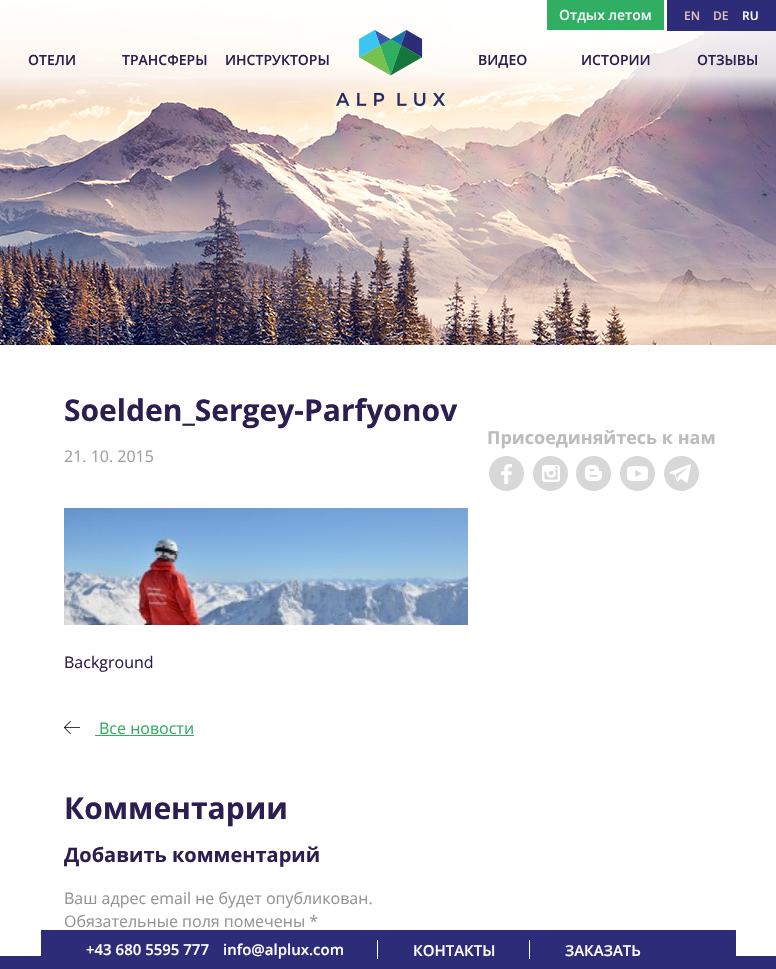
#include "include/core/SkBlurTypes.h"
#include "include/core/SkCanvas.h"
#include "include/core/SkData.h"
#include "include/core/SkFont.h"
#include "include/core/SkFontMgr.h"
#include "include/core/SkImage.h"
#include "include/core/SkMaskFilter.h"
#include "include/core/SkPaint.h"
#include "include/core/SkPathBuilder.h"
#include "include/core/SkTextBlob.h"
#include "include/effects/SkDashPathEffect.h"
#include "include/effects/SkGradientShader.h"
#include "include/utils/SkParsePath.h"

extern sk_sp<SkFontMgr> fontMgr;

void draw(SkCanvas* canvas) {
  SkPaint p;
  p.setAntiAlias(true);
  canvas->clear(SK_ColorWHITE);
  canvas->drawImageRect(SkImages::DeferredFromEncodedData(SkData::MakeFromFileName("images/1.png")), SkRect::MakeLTRB(0, 0, 776, 345), SkSamplingOptions());
  p.setColor(SkColorSetRGB(48, 175, 98));
  canvas->drawRect(SkRect::MakeLTRB(547, 0, 664, 30), p);
  p.setColor(SkColorSetRGB(45, 44, 121));
  canvas->drawRect(SkRect::MakeLTRB(667, 0, 776, 31), p);
  canvas->drawImageRect(SkImages::DeferredFromEncodedData(SkData::MakeFromFileName("images/2.png")), SkRect::MakeLTRB(336, 30, 445, 106), SkSamplingOptions());
  canvas->drawImageRect(SkImages::DeferredFromEncodedData(SkData::MakeFromFileName("images/3.png")), SkRect::MakeLTRB(64, 508, 468, 625), SkSamplingOptions());
  canvas->drawImageRect(SkImages::DeferredFromEncodedData(SkData::MakeFromFileName("images/4.png")), SkRect::MakeLTRB(64, 721, 80, 734), SkSamplingOptions());
  p.setColor(SkColorSetRGB(48, 175, 98));
  canvas->drawRect(SkRect::MakeLTRB(95, 735, 194, 736), p);
  canvas->drawImageRect(SkImages::DeferredFromEncodedData(SkData::MakeFromFileName("images/5.png")), SkRect::MakeLTRB(489, 456, 524, 491), SkSamplingOptions());
  canvas->drawImageRect(SkImages::DeferredFromEncodedData(SkData::MakeFromFileName("images/6.png")), SkRect::MakeLTRB(533, 456, 568, 491), SkSamplingOptions());
  canvas->drawImageRect(SkImages::DeferredFromEncodedData(SkData::MakeFromFileName("images/7.png")), SkRect::MakeLTRB(576, 456, 611, 491), SkSamplingOptions());
  canvas->drawImageRect(SkImages::DeferredFromEncodedData(SkData::MakeFromFileName("images/8.png")), SkRect::MakeLTRB(620, 456, 655, 491), SkSamplingOptions());
  canvas->drawImageRect(SkImages::DeferredFromEncodedData(SkData::MakeFromFileName("images/9.png")), SkRect::MakeLTRB(664, 456, 699, 491), SkSamplingOptions());
  p.setColor(SkColorSetRGB(45, 44, 121));
  canvas->drawRect(SkRect::MakeLTRB(0, 956, 776, 969), p);
  canvas->drawRect(SkRect::MakeLTRB(41, 930, 736, 956), p);
  p.setColor(SK_ColorWHITE);
  canvas->drawRect(SkRect::MakeLTRB(377, 940, 378, 959), p);
  canvas->drawRect(SkRect::MakeLTRB(529, 940, 530, 959), p);
  SkFont font1(fontMgr->matchFamilyStyle("Open Sans", SkFontStyle(600, SkFontStyle::kNormal_Width, SkFontStyle::kUpright_Slant)), 14);
  font1.setSubpixel(true);
  p.setColor(SkColorSetRGB(237, 237, 246));
  canvas->drawString("Отдых летом", 559, 20, font1, p);
  SkFont font2(fontMgr->matchFamilyStyle("Open Sans", SkFontStyle(600, SkFontStyle::kNormal_Width, SkFontStyle::kUpright_Slant)), 12);
  font2.setSubpixel(true);
  p.setColor(SkColorSetRGB(228, 196, 181));
  canvas->drawString("EN", 684, 20, font2, p);
  canvas->drawString("DE", 713, 20, font2, p);
  p.setColor(SK_ColorWHITE);
  canvas->drawString("RU", 742, 20, font2, p);
  p.setColor(SkColorSetRGB(43, 30, 80));
  canvas->drawString("ОТЕЛИ", 28, 65, font1, p);
  canvas->drawString("ТРАНСФЕРЫ", 122, 65, font1, p);
  canvas->drawString("ИНСТРУКТОРЫ", 225, 65, font1, p);
  canvas->drawString("ВИДЕО", 478, 65, font1, p);
  canvas->drawString("ИСТОРИИ", 581, 65, font1, p);
  canvas->drawString("ОТЗЫВЫ", 697, 65, font1, p);
  SkFont font3(fontMgr->matchFamilyStyle("Open Sans", SkFontStyle::Bold()), 30);
  font3.setSubpixel(true);
  canvas->drawString("Soelden_Sergey-Parfyonov", 64, 421, font3, p);
  SkFont font4(fontMgr->matchFamilyStyle("Open Sans", SkFontStyle::Normal()), 16);
  font4.setSubpixel(true);
  p.setColor(SkColorSetRGB(160, 158, 158));
  canvas->drawString("21. 10. 2015", 64, 462, font4, p);
  p.setColor(SkColorSetRGB(43, 30, 80));
  canvas->drawString("Background", 64, 668, font4, p);
  p.setColor(SkColorSetRGB(48, 175, 98));
  canvas->drawString("Все новости", 99, 734, font4, p);
  p.setColor(SkColorSetRGB(43, 30, 80));
  canvas->drawString("Комментарии", 64, 819, font3, p);
  SkFont font5(fontMgr->matchFamilyStyle("Open Sans", SkFontStyle::Bold()), 20);
  font5.setSubpixel(true);
  canvas->drawString("Добавить комментарий", 64, 862, font5, p);
  p.setColor(SkColorSetRGB(149, 148, 148));
  canvas->drawString("Ваш адрес email не будет опубликован.", 64, 904, font4, p);
  canvas->drawString("Обязательные поля помечены *", 64, 927, font4, p);
  SkFont font6(fontMgr->matchFamilyStyle("Open Sans", SkFontStyle::Bold()), 18);
  font6.setSubpixel(true);
  p.setColor(SkColorSetRGB(189, 188, 188));
  canvas->drawString("Присоединяйтесь к нам", 487, 444, font6, p);
  SkFont font7(fontMgr->matchFamilyStyle("Open Sans", SkFontStyle(600, SkFontStyle::kNormal_Width, SkFontStyle::kUpright_Slant)), 15);
  font7.setSubpixel(true);
  p.setColor(SK_ColorWHITE);
  canvas->drawString("+43 680 5595 777", 86, 955, font7, p);
  canvas->drawString("info@alplux.com", 223, 955, font7, p);
  canvas->drawString("КОНТАКТЫ", 413, 956, font7, p);
  canvas->drawString("ЗАКАЗАТЬ", 565, 956, font7, p);
}
